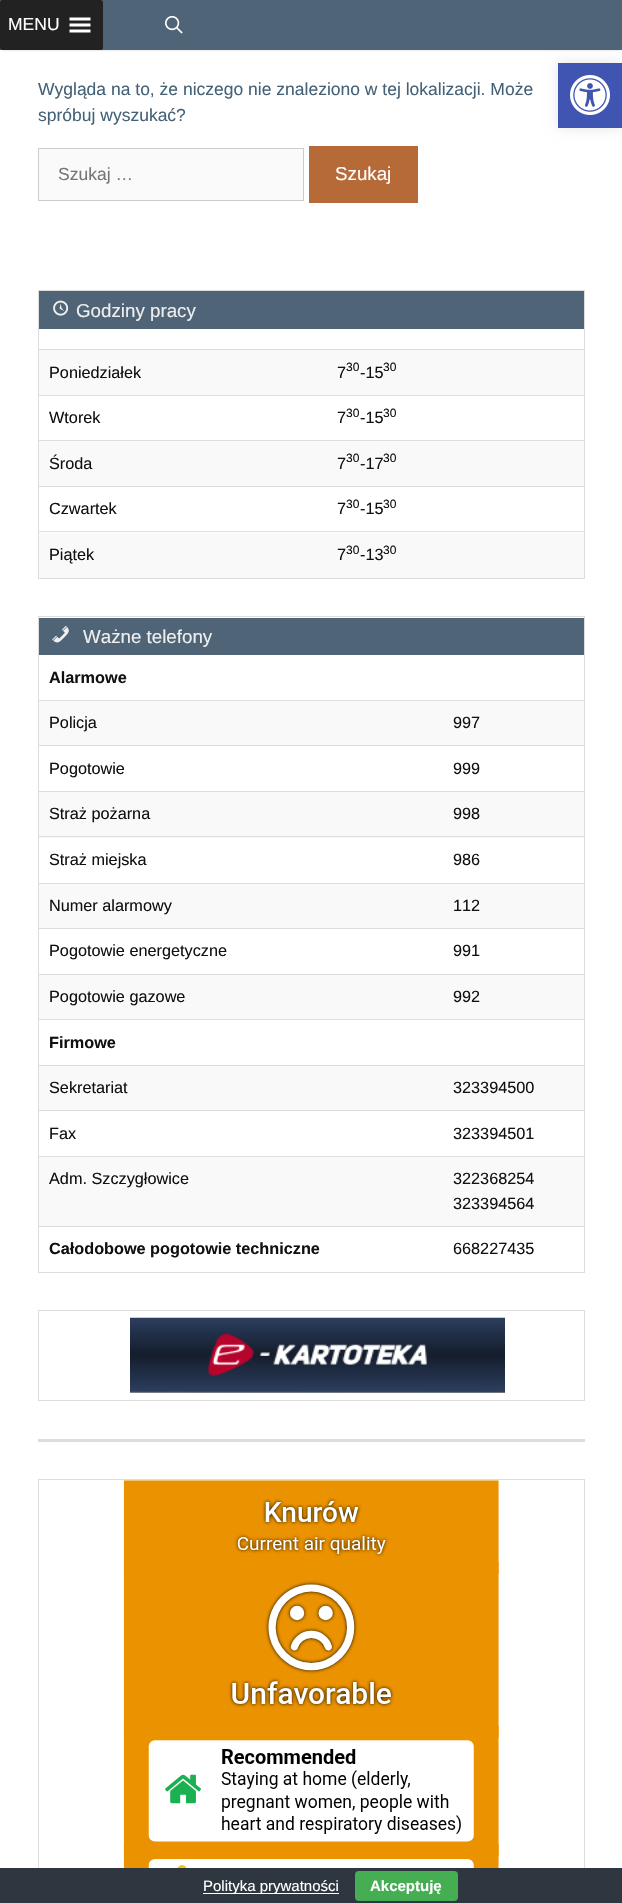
#include "include/core/SkBlurTypes.h"
#include "include/core/SkCanvas.h"
#include "include/core/SkData.h"
#include "include/core/SkFont.h"
#include "include/core/SkFontMgr.h"
#include "include/core/SkImage.h"
#include "include/core/SkMaskFilter.h"
#include "include/core/SkPaint.h"
#include "include/core/SkPathBuilder.h"
#include "include/core/SkTextBlob.h"
#include "include/effects/SkDashPathEffect.h"
#include "include/effects/SkGradientShader.h"
#include "include/utils/SkParsePath.h"

extern sk_sp<SkFontMgr> fontMgr;

void draw(SkCanvas* canvas) {
  SkPaint p;
  p.setAntiAlias(true);
  canvas->clear(SK_ColorWHITE);
  p.setColor(SkColorSetARGB(51, 0, 0, 0));
  p.setMaskFilter(SkMaskFilter::MakeBlur(kNormal_SkBlurStyle, 1));
  canvas->drawRect(SkRect::MakeLTRB(3, 5, 620, 50), p);
  p.setMaskFilter(nullptr);
  p.setColor(SkColorSetRGB(79, 101, 119));
  canvas->drawRect(SkRect::MakeLTRB(0, 0, 622, 50), p);
  p.setColor(SkColorSetRGB(34, 34, 34));
  canvas->drawRoundRect(SkRect::MakeLTRB(0, 0, 103, 50), 2.5f, 2.5f, p);
  canvas->drawImageRect(SkImages::DeferredFromEncodedData(SkData::MakeFromFileName("images/1.png")), SkRect::MakeLTRB(69, 17, 91, 33), SkSamplingOptions());
  canvas->drawImageRect(SkImages::DeferredFromEncodedData(SkData::MakeFromFileName("images/2.png")), SkRect::MakeLTRB(165, 15, 183, 34), SkSamplingOptions());
  p.setColor(SkColorSetRGB(250, 250, 250));
  canvas->drawRect(SkRect::MakeLTRB(38.5f, 148.5f, 303.5f, 200.5f), p);
  p.setStyle(SkPaint::kStroke_Style);
  p.setStrokeWidth(1);
  p.setColor(SkColorSetRGB(204, 204, 204));
  canvas->drawRect(SkRect::MakeLTRB(38.5f, 148.5f, 303.5f, 200.5f), p);
  p.setStyle(SkPaint::kFill_Style);
  p.setColor(SkColorSetRGB(181, 106, 56));
  canvas->drawRect(SkRect::MakeLTRB(309, 146, 418, 203), p);
  p.setStyle(SkPaint::kStroke_Style);
  p.setColor(SkColorSetRGB(221, 221, 221));
  canvas->drawRect(SkRect::MakeLTRB(38.5f, 290.5f, 584.5f, 578.5f), p);
  p.setStyle(SkPaint::kFill_Style);
  p.setColor(SkColorSetRGB(79, 101, 119));
  canvas->drawRect(SkRect::MakeLTRB(39, 291, 584, 329), p);
  canvas->drawImageRect(SkImages::DeferredFromEncodedData(SkData::MakeFromFileName("images/3.png")), SkRect::MakeLTRB(53, 300, 69, 316), SkSamplingOptions());
  p.setColor(SkColorSetRGB(221, 221, 221));
  canvas->drawRect(SkRect::MakeLTRB(39, 349, 585, 350), p);
  p.setColor(SkColorSetRGB(249, 249, 249));
  canvas->drawRect(SkRect::MakeLTRB(39, 350, 584, 395), p);
  p.setColor(SkColorSetRGB(221, 221, 221));
  canvas->drawRect(SkRect::MakeLTRB(39, 395, 585, 396), p);
  canvas->drawRect(SkRect::MakeLTRB(39, 440, 585, 441), p);
  p.setColor(SkColorSetRGB(249, 249, 249));
  canvas->drawRect(SkRect::MakeLTRB(39, 441, 584, 486), p);
  p.setColor(SkColorSetRGB(221, 221, 221));
  canvas->drawRect(SkRect::MakeLTRB(39, 486, 585, 487), p);
  canvas->drawRect(SkRect::MakeLTRB(39, 531, 585, 532), p);
  p.setColor(SkColorSetRGB(249, 249, 249));
  canvas->drawRect(SkRect::MakeLTRB(39, 533, 584, 578), p);
  p.setStyle(SkPaint::kStroke_Style);
  p.setColor(SkColorSetRGB(221, 221, 221));
  canvas->drawRect(SkRect::MakeLTRB(38.5f, 616.5f, 584.5f, 1272.5f), p);
  p.setStyle(SkPaint::kFill_Style);
  p.setColor(SkColorSetRGB(79, 101, 119));
  canvas->drawRect(SkRect::MakeLTRB(39, 618, 584, 655), p);
  canvas->drawImageRect(SkImages::DeferredFromEncodedData(SkData::MakeFromFileName("images/4.png")), SkRect::MakeLTRB(52, 625, 69, 643), SkSamplingOptions());
  p.setColor(SkColorSetRGB(249, 249, 249));
  canvas->drawRect(SkRect::MakeLTRB(39, 701, 584, 745), p);
  p.setColor(SkColorSetRGB(221, 221, 221));
  canvas->drawRect(SkRect::MakeLTRB(39, 700, 585, 701), p);
  canvas->drawRect(SkRect::MakeLTRB(39, 745, 585, 746), p);
  p.setColor(SkColorSetRGB(249, 249, 249));
  canvas->drawRect(SkRect::MakeLTRB(39, 792, 584, 838), p);
  p.setColor(SkColorSetRGB(221, 221, 221));
  canvas->drawRect(SkRect::MakeLTRB(39, 791, 585, 792), p);
  canvas->drawRect(SkRect::MakeLTRB(39, 836, 585, 837), p);
  p.setColor(SkColorSetRGB(249, 249, 249));
  canvas->drawRect(SkRect::MakeLTRB(39, 884, 584, 928), p);
  p.setColor(SkColorSetRGB(221, 221, 221));
  canvas->drawRect(SkRect::MakeLTRB(39, 883, 585, 884), p);
  canvas->drawRect(SkRect::MakeLTRB(39, 928, 585, 929), p);
  p.setColor(SkColorSetRGB(249, 249, 249));
  canvas->drawRect(SkRect::MakeLTRB(39, 975, 584, 1019), p);
  p.setColor(SkColorSetRGB(221, 221, 221));
  canvas->drawRect(SkRect::MakeLTRB(39, 974, 585, 975), p);
  canvas->drawRect(SkRect::MakeLTRB(39, 1019, 585, 1020), p);
  p.setColor(SkColorSetRGB(249, 249, 249));
  canvas->drawRect(SkRect::MakeLTRB(39, 1066, 584, 1110), p);
  p.setColor(SkColorSetRGB(221, 221, 221));
  canvas->drawRect(SkRect::MakeLTRB(39, 1065, 585, 1066), p);
  canvas->drawRect(SkRect::MakeLTRB(39, 1110, 585, 1111), p);
  p.setColor(SkColorSetRGB(249, 249, 249));
  canvas->drawRect(SkRect::MakeLTRB(39, 1157, 584, 1226), p);
  p.setColor(SkColorSetRGB(221, 221, 221));
  canvas->drawRect(SkRect::MakeLTRB(39, 1156, 585, 1157), p);
  canvas->drawRect(SkRect::MakeLTRB(39, 1226, 585, 1227), p);
  p.setStyle(SkPaint::kStroke_Style);
  canvas->drawRect(SkRect::MakeLTRB(38.5f, 1310.5f, 584.5f, 1400.5f), p);
  canvas->drawImageRect(SkImages::DeferredFromEncodedData(SkData::MakeFromFileName("images/5.png")), SkRect::MakeLTRB(130, 1317, 505, 1393), SkSamplingOptions());
  p.setStyle(SkPaint::kFill_Style);
  canvas->drawRect(SkRect::MakeLTRB(38, 1439, 585, 1442), p);
  p.setStyle(SkPaint::kStroke_Style);
  canvas->drawRect(SkRect::MakeLTRB(38.5f, 1479.5f, 584.5f, 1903.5f), p);
  canvas->drawImageRect(SkImages::DeferredFromEncodedData(SkData::MakeFromFileName("images/6.png")), SkRect::MakeLTRB(123, 1480, 499, 1868), SkSamplingOptions());
  p.setStyle(SkPaint::kFill_Style);
  p.setColor(SkColorSetARGB(26, 0, 0, 0));
  p.setMaskFilter(SkMaskFilter::MakeBlur(kNormal_SkBlurStyle, 6));
  canvas->drawRect(SkRect::MakeLTRB(558, 63, 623, 128), p);
  p.setMaskFilter(nullptr);
  p.setColor(SkColorSetRGB(64, 84, 178));
  canvas->drawRect(SkRect::MakeLTRB(558, 63, 622, 128), p);
  canvas->drawImageRect(SkImages::DeferredFromEncodedData(SkData::MakeFromFileName("images/7.png")), SkRect::MakeLTRB(570, 75, 610, 115), SkSamplingOptions());
  p.setColor(SkColorSetRGB(46, 54, 63));
  canvas->drawRect(SkRect::MakeLTRB(0, 1868, 622, 1903), p);
  p.setColor(SK_ColorWHITE);
  canvas->drawRect(SkRect::MakeLTRB(203, 1893, 339, 1894), p);
  p.setColor(SkColorSetRGB(69, 174, 82));
  canvas->drawRoundRect(SkRect::MakeLTRB(355, 1871, 458, 1901), 4, 4, p);
  SkFont font1(fontMgr->matchFamilyStyle("Liberation Sans", SkFontStyle::Normal()), 17.5f);
  font1.setSubpixel(true);
  p.setColor(SK_ColorWHITE);
  canvas->drawString("MENU", 8, 30, font1, p);
  p.setColor(SkColorSetRGB(68, 97, 119));
  canvas->drawString("Wygląda na to, że niczego nie znaleziono w tej lokalizacji. Może", 38, 95, font1, p);
  canvas->drawString("spróbuj wyszukać?", 38, 121, font1, p);
  p.setColor(SkColorSetRGB(117, 117, 117));
  canvas->drawString("Szukaj …", 58, 180, font1, p);
  SkFont font2(fontMgr->matchFamilyStyle("Liberation Sans", SkFontStyle::Normal()), 18.75f);
  font2.setSubpixel(true);
  p.setColor(SK_ColorWHITE);
  canvas->drawString("Szukaj", 335, 180, font2, p);
  p.setColor(SkColorSetRGB(239, 239, 239));
  canvas->drawString("Godziny pracy", 76, 317, font2, p);
  SkFont font3(fontMgr->matchFamilyStyle("Liberation Sans", SkFontStyle::Normal()), 16.25f);
  font3.setSubpixel(true);
  p.setColor(SkColorSetRGB(17, 17, 17));
  canvas->drawString("Poniedziałek", 49, 378, font3, p);
  canvas->drawString("7", 337, 378, font3, p);
  SkFont font4(fontMgr->matchFamilyStyle("Liberation Sans", SkFontStyle::Normal()), 12);
  font4.setSubpixel(true);
  canvas->drawString("30", 346, 371, font4, p);
  canvas->drawString("-15", 360, 378, font3, p);
  canvas->drawString("30", 383, 371, font4, p);
  canvas->drawString("Wtorek", 49, 423, font3, p);
  canvas->drawString("7", 337, 423, font3, p);
  canvas->drawString("30", 346, 417, font4, p);
  canvas->drawString("-15", 360, 423, font3, p);
  canvas->drawString("30", 383, 417, font4, p);
  canvas->drawString("Środa", 49, 469, font3, p);
  canvas->drawString("7", 337, 469, font3, p);
  canvas->drawString("30", 346, 462, font4, p);
  canvas->drawString("-17", 360, 469, font3, p);
  canvas->drawString("30", 383, 462, font4, p);
  canvas->drawString("Czwartek", 49, 514, font3, p);
  canvas->drawString("7", 337, 514, font3, p);
  canvas->drawString("30", 346, 508, font4, p);
  canvas->drawString("-15", 360, 514, font3, p);
  canvas->drawString("30", 383, 508, font4, p);
  canvas->drawString("Piątek", 49, 560, font3, p);
  canvas->drawString("7", 337, 560, font3, p);
  canvas->drawString("30", 346, 554, font4, p);
  canvas->drawString("-13", 360, 560, font3, p);
  canvas->drawString("30", 383, 554, font4, p);
  p.setColor(SkColorSetRGB(239, 239, 239));
  canvas->drawString("Ważne telefony", 83, 643, font2, p);
  SkFont font5(fontMgr->matchFamilyStyle("Liberation Sans", SkFontStyle::Bold()), 16.25f);
  font5.setSubpixel(true);
  p.setColor(SkColorSetRGB(17, 17, 17));
  canvas->drawString("Alarmowe", 49, 683, font5, p);
  canvas->drawString("Policja", 49, 728, font3, p);
  canvas->drawString("997", 453, 728, font3, p);
  canvas->drawString("Pogotowie", 49, 774, font3, p);
  canvas->drawString("999", 453, 774, font3, p);
  canvas->drawString("Straż pożarna", 49, 819, font3, p);
  canvas->drawString("998", 453, 819, font3, p);
  canvas->drawString("Straż miejska", 49, 865, font3, p);
  canvas->drawString("986", 453, 865, font3, p);
  canvas->drawString("Numer alarmowy", 49, 911, font3, p);
  canvas->drawString("112", 453, 911, font3, p);
  canvas->drawString("Pogotowie energetyczne", 49, 956, font3, p);
  canvas->drawString("991", 453, 956, font3, p);
  canvas->drawString("Pogotowie gazowe", 49, 1002, font3, p);
  canvas->drawString("992", 453, 1002, font3, p);
  canvas->drawString("Firmowe", 49, 1048, font5, p);
  canvas->drawString("Sekretariat", 49, 1093, font3, p);
  canvas->drawString("323394500", 453, 1093, font3, p);
  canvas->drawString("Fax", 49, 1139, font3, p);
  canvas->drawString("323394501", 453, 1139, font3, p);
  canvas->drawString("Adm. Szczygłowice", 49, 1184, font3, p);
  canvas->drawString("322368254", 453, 1184, font3, p);
  canvas->drawString("323394564", 453, 1209, font3, p);
  canvas->drawString("Całodobowe pogotowie techniczne", 49, 1254, font5, p);
  canvas->drawString("668227435", 453, 1254, font3, p);
  SkFont font6(fontMgr->matchFamilyStyle("Liberation Sans", SkFontStyle::Normal()), 15);
  font6.setSubpixel(true);
  p.setColor(SK_ColorWHITE);
  canvas->drawString("Polityka prywatności", 203, 1891, font6, p);
  SkFont font7(fontMgr->matchFamilyStyle("Liberation Sans", SkFontStyle::Bold()), 15);
  font7.setSubpixel(true);
  canvas->drawString("Akceptuję", 370, 1891, font7, p);
}
